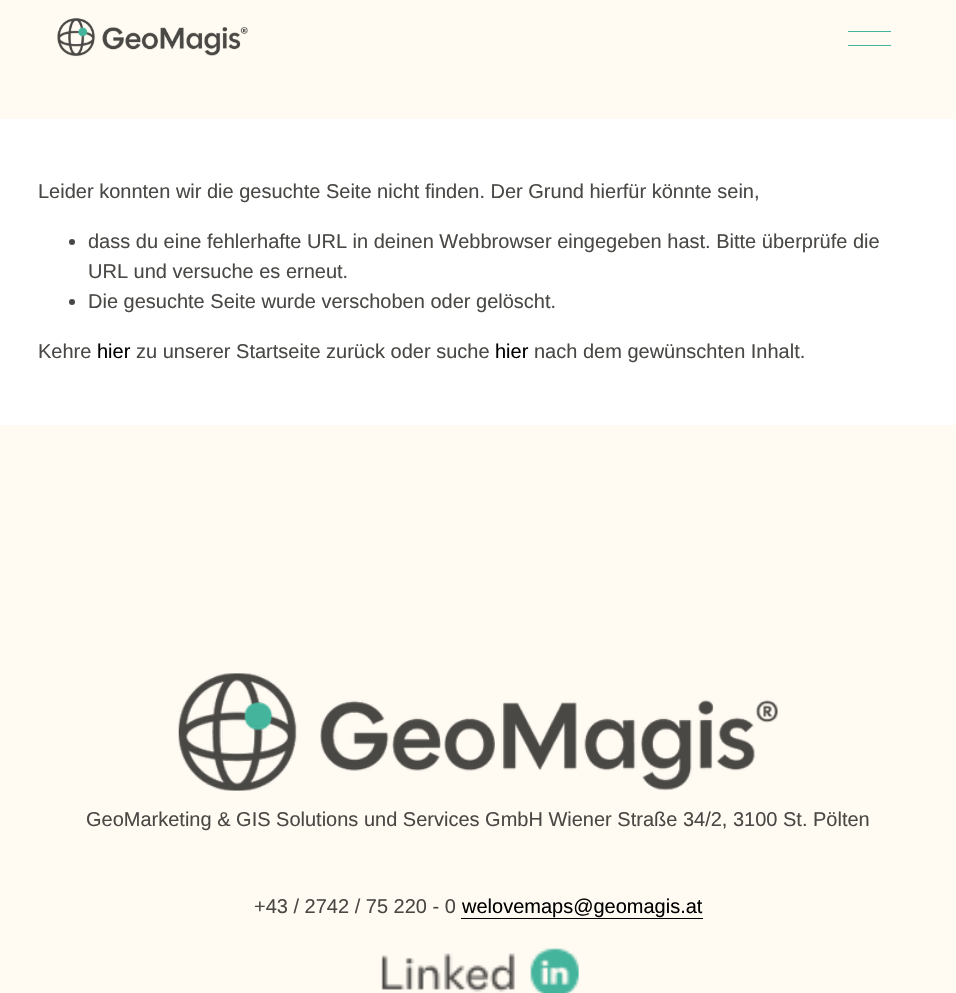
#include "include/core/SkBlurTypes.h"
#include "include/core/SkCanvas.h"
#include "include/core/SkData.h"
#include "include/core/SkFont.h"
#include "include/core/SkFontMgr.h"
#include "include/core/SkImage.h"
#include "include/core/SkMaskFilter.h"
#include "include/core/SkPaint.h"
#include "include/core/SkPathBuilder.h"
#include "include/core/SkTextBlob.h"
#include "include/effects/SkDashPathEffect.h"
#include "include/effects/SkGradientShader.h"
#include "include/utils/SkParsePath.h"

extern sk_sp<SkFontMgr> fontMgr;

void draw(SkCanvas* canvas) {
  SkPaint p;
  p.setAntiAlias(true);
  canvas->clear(SK_ColorWHITE);
  p.setColor(SkColorSetRGB(255, 251, 243));
  canvas->drawRect(SkRect::MakeLTRB(0, 0, 956, 119), p);
  canvas->drawImageRect(SkImages::DeferredFromEncodedData(SkData::MakeFromFileName("images/1.png")), SkRect::MakeLTRB(57, 18, 248, 57), SkSamplingOptions());
  p.setColor(SkColorSetRGB(69, 180, 157));
  canvas->drawRect(SkRect::MakeLTRB(848, 31, 891, 32), p);
  canvas->drawRect(SkRect::MakeLTRB(848, 45, 891, 46), p);
  p.setColor(SkColorSetRGB(74, 72, 69));
  canvas->drawCircle(72, 242, 3, p);
  canvas->drawCircle(72, 302, 3, p);
  p.setColor(SkColorSetRGB(255, 251, 243));
  canvas->drawRect(SkRect::MakeLTRB(0, 425, 956, 993), p);
  canvas->drawImageRect(SkImages::DeferredFromEncodedData(SkData::MakeFromFileName("images/2.png")), SkRect::MakeLTRB(178, 673, 778, 791), SkSamplingOptions());
  p.setColor(SK_ColorBLACK);
  canvas->drawRect(SkRect::MakeLTRB(461, 918, 703, 919), p);
  canvas->drawImageRect(SkImages::DeferredFromEncodedData(SkData::MakeFromFileName("images/3.png")), SkRect::MakeLTRB(381, 948, 579, 993), SkSamplingOptions());
  SkFont font1(fontMgr->matchFamilyStyle("Liberation Sans", SkFontStyle::Normal()), 20);
  font1.setSubpixel(true);
  p.setColor(SkColorSetRGB(74, 72, 69));
  canvas->drawString("Leider konnten wir die gesuchte Seite nicht finden. Der Grund hierfür könnte sein,", 38, 198, font1, p);
  canvas->drawString("dass du eine fehlerhafte URL in deinen Webbrowser eingegeben hast. Bitte überprüfe die", 88, 248, font1, p);
  canvas->drawString("URL und versuche es erneut.", 88, 278, font1, p);
  canvas->drawString("Die gesuchte Seite wurde verschoben oder gelöscht.", 88, 308, font1, p);
  canvas->drawString("Kehre", 38, 358, font1, p);
  p.setColor(SK_ColorBLACK);
  canvas->drawString("hier", 97, 358, font1, p);
  p.setColor(SkColorSetRGB(74, 72, 69));
  canvas->drawString("zu unserer Startseite zurück oder suche", 136, 358, font1, p);
  p.setColor(SK_ColorBLACK);
  canvas->drawString("hier", 495, 358, font1, p);
  p.setColor(SkColorSetRGB(74, 72, 69));
  canvas->drawString("nach dem gewünschten Inhalt.", 534, 358, font1, p);
  canvas->drawString("GeoMarketing & GIS Solutions und Services GmbH Wiener Straße 34/2, 3100 St. Pölten", 86, 826, font1, p);
  canvas->drawString("+43 / 2742 / 75 220 - 0", 254, 913, font1, p);
  p.setColor(SK_ColorBLACK);
  canvas->drawString("welovemaps@geomagis.at", 462, 913, font1, p);
}
